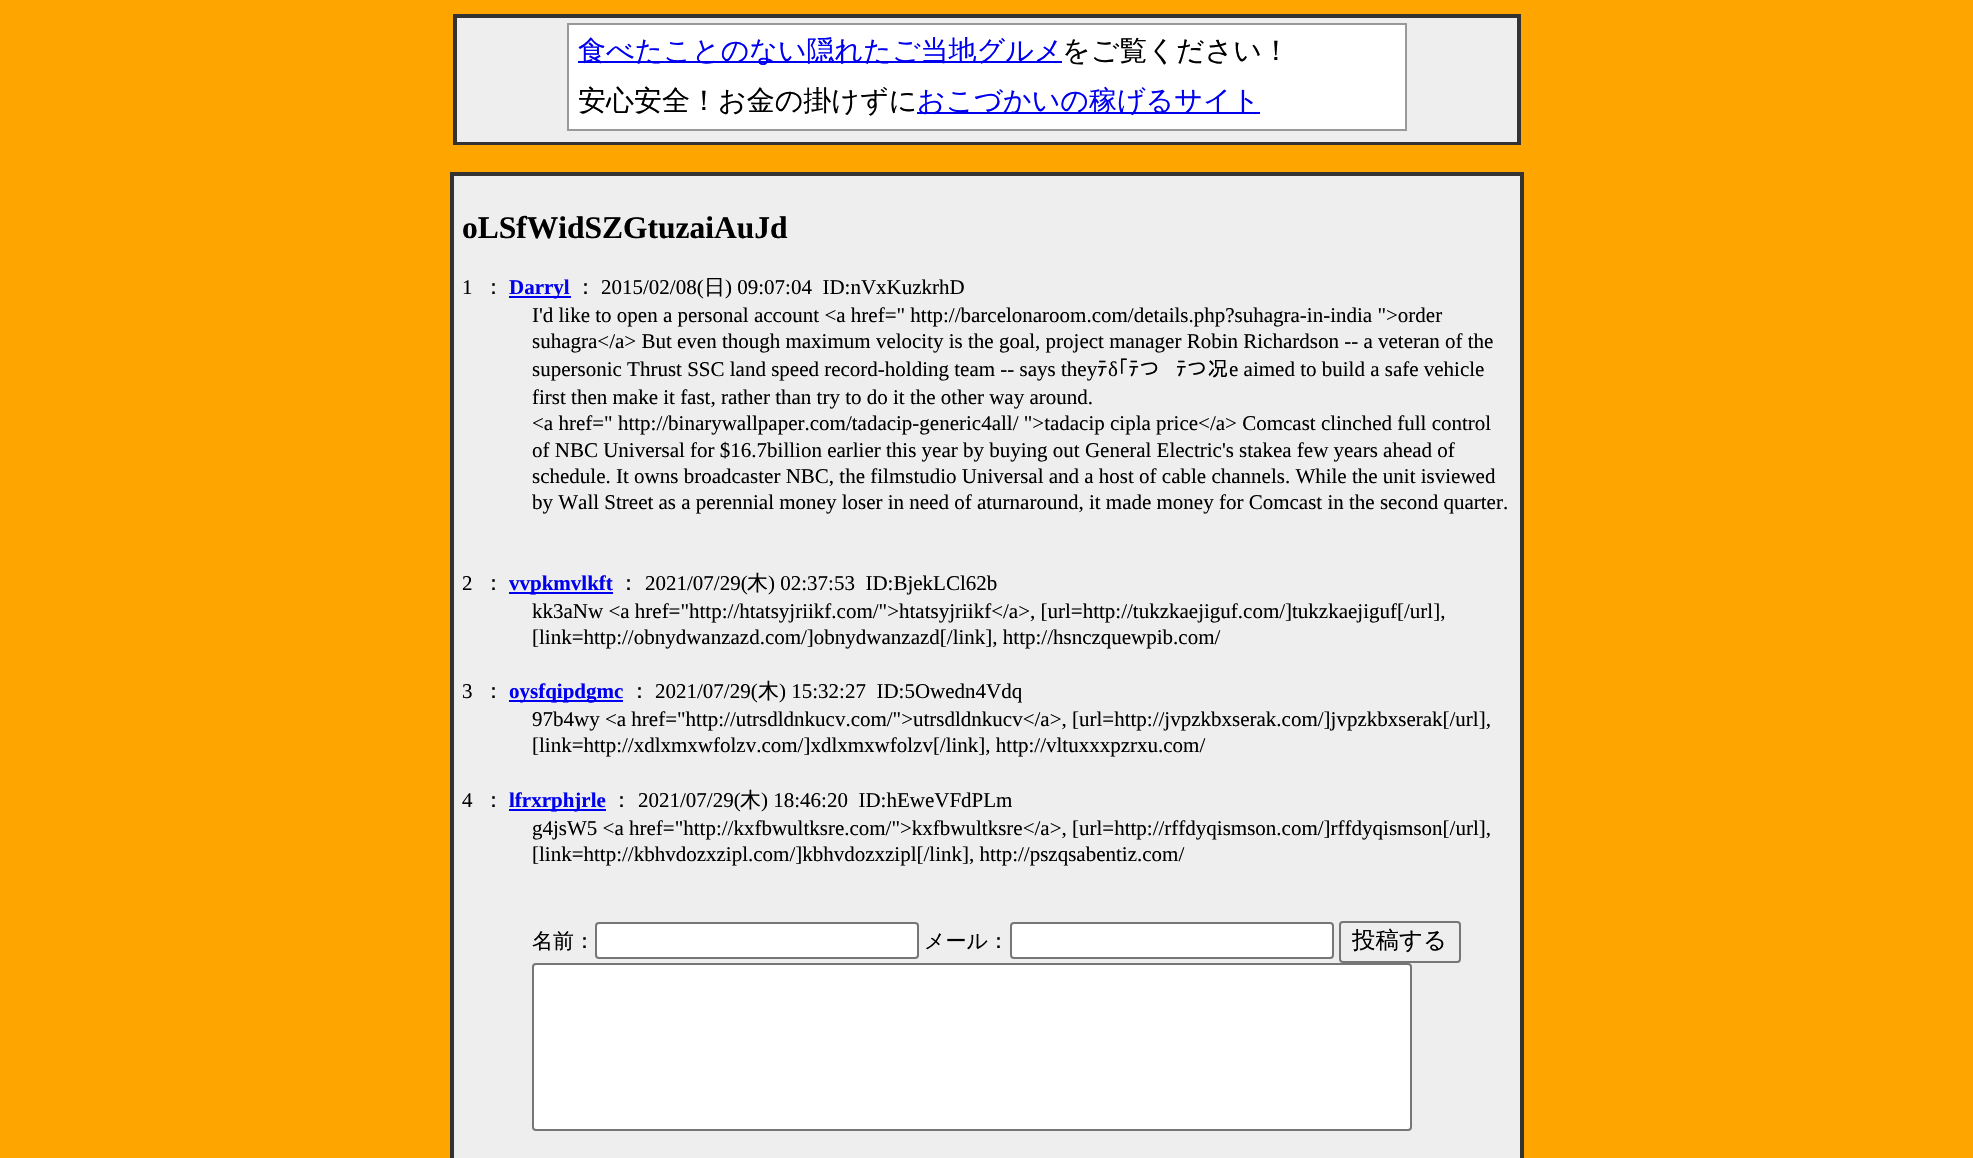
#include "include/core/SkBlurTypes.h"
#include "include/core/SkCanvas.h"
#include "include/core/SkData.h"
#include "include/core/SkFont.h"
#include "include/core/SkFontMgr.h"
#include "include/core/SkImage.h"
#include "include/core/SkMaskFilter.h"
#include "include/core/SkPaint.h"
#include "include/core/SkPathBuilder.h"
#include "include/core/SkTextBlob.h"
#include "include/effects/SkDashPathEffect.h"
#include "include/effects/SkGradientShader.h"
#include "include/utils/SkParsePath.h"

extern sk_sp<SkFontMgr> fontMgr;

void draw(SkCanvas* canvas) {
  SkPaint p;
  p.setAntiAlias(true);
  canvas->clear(SkColorSetRGB(255, 165, 0));
  p.setColor(SkColorSetRGB(238, 238, 238));
  canvas->drawRect(SkRect::MakeLTRB(457, 18, 1517, 142), p);
  p.setStyle(SkPaint::kStroke_Style);
  p.setStrokeWidth(2);
  p.setColor(SkColorSetRGB(51, 51, 51));
  canvas->drawRect(SkRect::MakeLTRB(454, 15, 1520, 144), p);
  canvas->drawRect(SkRect::MakeLTRB(456, 17, 1518, 143), p);
  p.setStyle(SkPaint::kFill_Style);
  p.setColor(SK_ColorWHITE);
  canvas->drawRect(SkRect::MakeLTRB(568, 24, 1406, 130), p);
  p.setStyle(SkPaint::kStroke_Style);
  p.setColor(SkColorSetRGB(153, 153, 153));
  canvas->drawRect(SkRect::MakeLTRB(568, 24, 1406, 130), p);
  p.setStyle(SkPaint::kFill_Style);
  p.setColor(SkColorSetRGB(0, 0, 238));
  canvas->drawRect(SkRect::MakeLTRB(578, 61, 1062, 63), p);
  canvas->drawRect(SkRect::MakeLTRB(917, 112, 1260, 114), p);
  p.setColor(SkColorSetRGB(238, 238, 238));
  canvas->drawRect(SkRect::MakeLTRB(452, 174, 1522, 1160), p);
  p.setStyle(SkPaint::kStroke_Style);
  p.setStrokeWidth(4);
  p.setColor(SkColorSetRGB(51, 51, 51));
  canvas->drawRect(SkRect::MakeLTRB(452, 174, 1522, 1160), p);
  p.setStyle(SkPaint::kFill_Style);
  p.setColor(SkColorSetRGB(0, 0, 238));
  canvas->drawRect(SkRect::MakeLTRB(509, 296, 571, 298), p);
  canvas->drawRect(SkRect::MakeLTRB(509, 592, 613, 594), p);
  canvas->drawRect(SkRect::MakeLTRB(509, 700, 623, 702), p);
  canvas->drawRect(SkRect::MakeLTRB(509, 809, 606, 811), p);
  p.setColor(SK_ColorWHITE);
  canvas->drawRoundRect(SkRect::MakeLTRB(596, 923, 918, 958), 3, 3, p);
  p.setStyle(SkPaint::kStroke_Style);
  p.setStrokeWidth(2);
  p.setColor(SkColorSetRGB(118, 118, 118));
  canvas->drawRoundRect(SkRect::MakeLTRB(596, 923, 918, 958), 3, 3, p);
  p.setStyle(SkPaint::kFill_Style);
  p.setColor(SK_ColorWHITE);
  canvas->drawRoundRect(SkRect::MakeLTRB(1011, 923, 1333, 958), 3, 3, p);
  p.setStyle(SkPaint::kStroke_Style);
  p.setColor(SkColorSetRGB(118, 118, 118));
  canvas->drawRoundRect(SkRect::MakeLTRB(1011, 923, 1333, 958), 3, 3, p);
  canvas->drawRoundRect(SkRect::MakeLTRB(1340, 922, 1460, 962), 3, 3, p);
  p.setStyle(SkPaint::kFill_Style);
  p.setColor(SK_ColorWHITE);
  canvas->drawRoundRect(SkRect::MakeLTRB(533, 964, 1411, 1130), 3, 3, p);
  p.setStyle(SkPaint::kStroke_Style);
  p.setColor(SkColorSetRGB(118, 118, 118));
  canvas->drawRoundRect(SkRect::MakeLTRB(533, 964, 1411, 1130), 3, 3, p);
  SkFont font1(fontMgr->matchFamilyStyle("WenQuanYi Zen Hei", SkFontStyle(500, SkFontStyle::kNormal_Width, SkFontStyle::kUpright_Slant)), 28);
  font1.setSubpixel(true);
  p.setStyle(SkPaint::kFill_Style);
  p.setColor(SkColorSetRGB(0, 0, 238));
  canvas->drawString("食べたことのない隠れたご当地グルメ", 578, 60, font1, p);
  p.setColor(SK_ColorBLACK);
  canvas->drawString("をご覧ください！", 1062, 60, font1, p);
  canvas->drawString("安心安全！お金の掛けずに", 578, 110, font1, p);
  p.setColor(SkColorSetRGB(0, 0, 238));
  canvas->drawString("おこづかいの稼げるサイト", 917, 110, font1, p);
  SkFont font2(fontMgr->matchFamilyStyle("Liberation Serif", SkFontStyle::Bold()), 31.5f);
  font2.setSubpixel(true);
  p.setColor(SK_ColorBLACK);
  canvas->drawString("oLSfWidSZGtuzaiAuJd", 462, 238, font2, p);
  SkFont font3(fontMgr->matchFamilyStyle("Liberation Serif", SkFontStyle::Normal()), 21);
  font3.setSubpixel(true);
  canvas->drawString("1", 462, 294, font3, p);
  SkFont font4(fontMgr->matchFamilyStyle("WenQuanYi Zen Hei", SkFontStyle(500, SkFontStyle::kNormal_Width, SkFontStyle::kUpright_Slant)), 21);
  font4.setSubpixel(true);
  canvas->drawString("：", 483, 294, font4, p);
  SkFont font5(fontMgr->matchFamilyStyle("Liberation Serif", SkFontStyle::Bold()), 21);
  font5.setSubpixel(true);
  p.setColor(SkColorSetRGB(0, 0, 238));
  canvas->drawString("Darryl", 509, 294, font5, p);
  p.setColor(SK_ColorBLACK);
  canvas->drawString("：", 575, 294, font4, p);
  canvas->drawString("2015/02/08(", 601, 294, font3, p);
  canvas->drawString("日", 704, 294, font4, p);
  canvas->drawString(") 09:07:04  ID:nVxKuzkrhD", 725, 294, font3, p);
  canvas->drawString("I'd like to open a personal account <a href=\" http://barcelonaroom.com/details.php?suhagra-in-india \">order", 532, 322, font3, p);
  canvas->drawString("suhagra</a> But even though maximum velocity is the goal, project manager Robin Richardson -- a veteran of the", 532, 348, font3, p);
  canvas->drawString("supersonic Thrust SSC land speed record-holding team -- says they", 532, 376, font3, p);
  SkFont font6(fontMgr->matchFamilyStyle("IPAGothic", SkFontStyle::Normal()), 21);
  font6.setSubpixel(true);
  canvas->drawString("ﾃ", 1097, 376, font6, p);
  canvas->drawString("δ", 1108, 376, font3, p);
  canvas->drawString("｢ﾃつ", 1118, 376, font6, p);
  canvas->drawString("ﾃつ况", 1176, 376, font6, p);
  canvas->drawString("e aimed to build a safe vehicle", 1229, 376, font3, p);
  canvas->drawString("first then make it fast, rather than try to do it the other way around.", 532, 404, font3, p);
  canvas->drawString("<a href=\" http://binarywallpaper.com/tadacip-generic4all/ \">tadacip cipla price</a> Comcast clinched full control", 532, 430, font3, p);
  canvas->drawString("of NBC Universal for $16.7billion earlier this year by buying out General Electric's stakea few years ahead of", 532, 457, font3, p);
  canvas->drawString("schedule. It owns broadcaster NBC, the filmstudio Universal and a host of cable channels. While the unit isviewed", 532, 483, font3, p);
  canvas->drawString("by Wall Street as a perennial money loser in need of aturnaround, it made money for Comcast in the second quarter.", 532, 509, font3, p);
  canvas->drawString("2", 462, 590, font3, p);
  canvas->drawString("：", 483, 590, font4, p);
  p.setColor(SkColorSetRGB(0, 0, 238));
  canvas->drawString("vvpkmvlkft", 509, 590, font5, p);
  p.setColor(SK_ColorBLACK);
  canvas->drawString("：", 618, 590, font4, p);
  canvas->drawString("2021/07/29(", 645, 590, font3, p);
  canvas->drawString("木", 747, 590, font4, p);
  canvas->drawString(") 02:37:53  ID:BjekLCl62b", 768, 590, font3, p);
  canvas->drawString("kk3aNw <a href=\"http://htatsyjriikf.com/\">htatsyjriikf</a>, [url=http://tukzkaejiguf.com/]tukzkaejiguf[/url],", 532, 618, font3, p);
  canvas->drawString("[link=http://obnydwanzazd.com/]obnydwanzazd[/link], http://hsnczquewpib.com/", 532, 644, font3, p);
  canvas->drawString("3", 462, 698, font3, p);
  canvas->drawString("：", 483, 698, font4, p);
  p.setColor(SkColorSetRGB(0, 0, 238));
  canvas->drawString("oysfqipdgmc", 509, 698, font5, p);
  p.setColor(SK_ColorBLACK);
  canvas->drawString("：", 629, 698, font4, p);
  canvas->drawString("2021/07/29(", 655, 698, font3, p);
  canvas->drawString("木", 758, 698, font4, p);
  canvas->drawString(") 15:32:27  ID:5Owedn4Vdq", 779, 698, font3, p);
  canvas->drawString("97b4wy <a href=\"http://utrsdldnkucv.com/\">utrsdldnkucv</a>, [url=http://jvpzkbxserak.com/]jvpzkbxserak[/url],", 532, 726, font3, p);
  canvas->drawString("[link=http://xdlxmxwfolzv.com/]xdlxmxwfolzv[/link], http://vltuxxxpzrxu.com/", 532, 752, font3, p);
  canvas->drawString("4", 462, 807, font3, p);
  canvas->drawString("：", 483, 807, font4, p);
  p.setColor(SkColorSetRGB(0, 0, 238));
  canvas->drawString("lfrxrphjrle", 509, 807, font5, p);
  p.setColor(SK_ColorBLACK);
  canvas->drawString("：", 611, 807, font4, p);
  canvas->drawString("2021/07/29(", 638, 807, font3, p);
  canvas->drawString("木", 740, 807, font4, p);
  canvas->drawString(") 18:46:20  ID:hEweVFdPLm", 761, 807, font3, p);
  canvas->drawString("g4jsW5 <a href=\"http://kxfbwultksre.com/\">kxfbwultksre</a>, [url=http://rffdyqismson.com/]rffdyqismson[/url],", 532, 835, font3, p);
  canvas->drawString("[link=http://kbhvdozxzipl.com/]kbhvdozxzipl[/link], http://pszqsabentiz.com/", 532, 861, font3, p);
  canvas->drawString("名前：", 532, 948, font4, p);
  canvas->drawString("メール：", 924, 948, font4, p);
  SkFont font7(fontMgr->matchFamilyStyle("WenQuanYi Zen Hei", SkFontStyle(500, SkFontStyle::kNormal_Width, SkFontStyle::kUpright_Slant)), 23.5f);
  font7.setSubpixel(true);
  canvas->drawString("投稿する", 1352, 948, font7, p);
}
